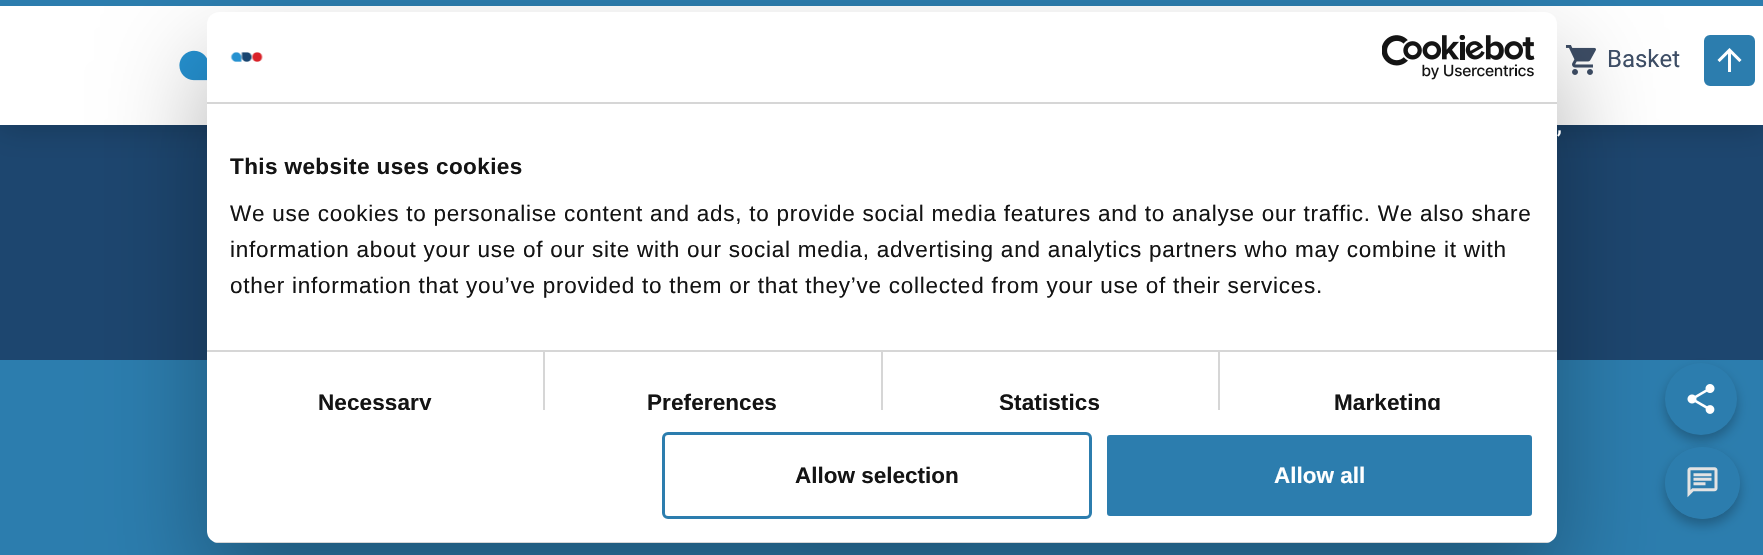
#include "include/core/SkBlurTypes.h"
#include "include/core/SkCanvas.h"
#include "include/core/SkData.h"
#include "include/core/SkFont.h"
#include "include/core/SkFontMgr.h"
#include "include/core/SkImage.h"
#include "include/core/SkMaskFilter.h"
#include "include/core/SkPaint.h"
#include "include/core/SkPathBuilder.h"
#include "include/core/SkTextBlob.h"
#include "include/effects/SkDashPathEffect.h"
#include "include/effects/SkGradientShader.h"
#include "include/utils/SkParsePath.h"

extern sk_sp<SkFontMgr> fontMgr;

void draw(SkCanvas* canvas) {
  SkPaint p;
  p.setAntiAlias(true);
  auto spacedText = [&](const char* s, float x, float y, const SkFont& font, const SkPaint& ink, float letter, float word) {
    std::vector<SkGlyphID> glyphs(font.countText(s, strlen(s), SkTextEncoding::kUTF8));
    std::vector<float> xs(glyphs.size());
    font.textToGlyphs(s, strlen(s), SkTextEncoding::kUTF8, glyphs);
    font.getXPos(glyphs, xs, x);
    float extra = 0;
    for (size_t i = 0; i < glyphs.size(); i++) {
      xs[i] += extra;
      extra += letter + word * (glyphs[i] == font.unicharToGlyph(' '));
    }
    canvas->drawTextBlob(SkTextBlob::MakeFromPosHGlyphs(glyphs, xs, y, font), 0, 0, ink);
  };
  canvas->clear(SkColorSetRGB(29, 70, 111));
  p.setColor(SkColorSetARGB(51, 0, 0, 0));
  p.setMaskFilter(SkMaskFilter::MakeBlur(kNormal_SkBlurStyle, 15));
  canvas->drawRect(SkRect::MakeLTRB(-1, 0, 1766, 128), p);
  p.setMaskFilter(nullptr);
  p.setColor(SK_ColorWHITE);
  canvas->drawRect(SkRect::MakeLTRB(0, 6, 1763, 125), p);
  p.setColor(SkColorSetRGB(44, 125, 174));
  canvas->drawRect(SkRect::MakeLTRB(0, 0, 1763, 6), p);
  canvas->drawImageRect(SkImages::DeferredFromEncodedData(SkData::MakeFromFileName("images/1.png")), SkRect::MakeLTRB(179, 50, 207, 81), SkSamplingOptions());
  canvas->drawImageRect(SkImages::DeferredFromEncodedData(SkData::MakeFromFileName("images/2.png")), SkRect::MakeLTRB(1565, 45, 1596, 75), SkSamplingOptions());
  canvas->drawRoundRect(SkRect::MakeLTRB(1705, 36, 1754, 85), 5, 5, p);
  p.setStyle(SkPaint::kStroke_Style);
  p.setStrokeWidth(2);
  canvas->drawRoundRect(SkRect::MakeLTRB(1705, 36, 1754, 85), 5, 5, p);
  canvas->drawImageRect(SkImages::DeferredFromEncodedData(SkData::MakeFromFileName("images/3.png")), SkRect::MakeLTRB(1717, 48, 1742, 72), SkSamplingOptions());
  p.setStyle(SkPaint::kFill_Style);
  canvas->drawRect(SkRect::MakeLTRB(0, 360, 1763, 555), p);
  p.setColor(SkColorSetARGB(51, 0, 0, 0));
  p.setMaskFilter(SkMaskFilter::MakeBlur(kNormal_SkBlurStyle, 15));
  canvas->drawRoundRect(SkRect::MakeLTRB(804, 468, 960, 528), 8, 8, p);
  p.setMaskFilter(nullptr);
  p.setColor(SkColorSetARGB(64, 0, 0, 0));
  p.setMaskFilter(SkMaskFilter::MakeBlur(kNormal_SkBlurStyle, 6));
  canvas->drawRoundRect(SkRect::MakeLTRB(1665, 369, 1737, 441), 36, 36, p);
  p.setMaskFilter(nullptr);
  p.setColor(SkColorSetRGB(44, 125, 174));
  canvas->drawCircle(1701, 399, 36, p);
  canvas->drawImageRect(SkImages::DeferredFromEncodedData(SkData::MakeFromFileName("images/4.png")), SkRect::MakeLTRB(1687, 384, 1715, 414), SkSamplingOptions());
  p.setColor(SkColorSetARGB(64, 0, 0, 0));
  p.setMaskFilter(SkMaskFilter::MakeBlur(kNormal_SkBlurStyle, 6));
  canvas->drawRoundRect(SkRect::MakeLTRB(1665, 453, 1740, 525), 36, 36, p);
  p.setMaskFilter(nullptr);
  p.setColor(SkColorSetRGB(44, 125, 174));
  canvas->drawOval(SkRect::MakeLTRB(1665, 447, 1740, 519), p);
  p.setStyle(SkPaint::kStroke_Style);
  p.setStrokeWidth(1.5f);
  canvas->drawPath(SkPathBuilder().moveTo(1702.5f, 448).cubicTo(1723, 448, 1739, 463.5f, 1739, 483).cubicTo(1739, 502.5f, 1723, 518, 1702.5f, 518).cubicTo(1682, 518, 1666, 502.5f, 1666, 483).cubicTo(1666, 463.5f, 1682, 448, 1702.5f, 448).close().detach(), p);
  canvas->drawImageRect(SkImages::DeferredFromEncodedData(SkData::MakeFromFileName("images/5.png")), SkRect::MakeLTRB(1687, 467, 1718, 498), SkSamplingOptions());
  p.setStyle(SkPaint::kFill_Style);
  p.setColor(SkColorSetARGB(77, 0, 0, 0));
  p.setMaskFilter(SkMaskFilter::MakeBlur(kNormal_SkBlurStyle, 51));
  canvas->drawRoundRect(SkRect::MakeLTRB(207, 60, 1557, 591), 12, 12, p);
  p.setMaskFilter(nullptr);
  p.setColor(SK_ColorWHITE);
  canvas->drawRoundRect(SkRect::MakeLTRB(207, 12, 1557, 543), 12, 12, p);
  p.setColor(SkColorSetRGB(214, 214, 214));
  canvas->drawRect(SkRect::MakeLTRB(207, 102, 1557, 104), p);
  canvas->drawImageRect(SkImages::DeferredFromEncodedData(SkData::MakeFromFileName("images/6.png")), SkRect::MakeLTRB(230, 52, 263, 62), SkSamplingOptions());
  canvas->drawImageRect(SkImages::DeferredFromEncodedData(SkData::MakeFromFileName("images/7.png")), SkRect::MakeLTRB(1382, 35, 1535, 80), SkSamplingOptions());
  canvas->drawRect(SkRect::MakeLTRB(543, 351, 545, 410), p);
  canvas->drawRect(SkRect::MakeLTRB(881, 351, 883, 410), p);
  canvas->drawRect(SkRect::MakeLTRB(1218, 351, 1220, 410), p);
  canvas->drawRect(SkRect::MakeLTRB(207, 350, 1557, 352), p);
  canvas->save();
  canvas->clipPath(SkPathBuilder().moveTo(219, 12).lineTo(1545, 12).cubicTo(1551.5f, 12, 1557, 17.5f, 1557, 24).lineTo(1557, 531).cubicTo(1557, 537.5f, 1551.5f, 543, 1545, 543).lineTo(219, 543).cubicTo(212.5f, 543, 207, 537.5f, 207, 531).lineTo(207, 24).cubicTo(207, 17.5f, 212.5f, 12, 219, 12).close().detach(), true);
  canvas->drawRect(SkRect::MakeLTRB(207, 542, 1557, 543), p);
  canvas->restore();
  p.setStyle(SkPaint::kStroke_Style);
  p.setStrokeWidth(3);
  p.setColor(SkColorSetRGB(44, 125, 174));
  canvas->drawRoundRect(SkRect::MakeLTRB(663.5f, 433.5f, 1090.5f, 517.5f), 4.5f, 4.5f, p);
  p.setStyle(SkPaint::kFill_Style);
  canvas->drawRoundRect(SkRect::MakeLTRB(1105.5f, 433.5f, 1533.5f, 517.5f), 4.5f, 4.5f, p);
  p.setStyle(SkPaint::kStroke_Style);
  p.setColor(SK_ColorWHITE);
  canvas->drawRoundRect(SkRect::MakeLTRB(1105.5f, 433.5f, 1533.5f, 517.5f), 4.5f, 4.5f, p);
  SkFont font1(fontMgr->matchFamilyStyle("Roboto", SkFontStyle::Normal()), 24);
  font1.setSubpixel(true);
  p.setStyle(SkPaint::kFill_Style);
  p.setColor(SkColorSetRGB(61, 77, 101));
  canvas->drawString("Basket", 1607, 67, font1, p);
  p.setColor(SK_ColorWHITE);
  canvas->drawString(",", 1557, 133, font1, p);
  SkFont font2(fontMgr->matchFamilyStyle("Liberation Sans", SkFontStyle::Bold()), 22.5f);
  font2.setSubpixel(true);
  p.setColor(SkColorSetRGB(20, 20, 20));
  spacedText("This website uses cookies", 230, 174, font2, p, 0.4f, 0);
  SkFont font3(fontMgr->matchFamilyStyle("Liberation Sans", SkFontStyle::Normal()), 22.5f);
  font3.setSubpixel(true);
  spacedText("We use cookies to personalise content and ads, to provide social media features and to analyse our traffic. We also share", 230, 221, font3, p, 0.75f, 0);
  spacedText("information about your use of our site with our social media, advertising and analytics partners who may combine it with", 230, 257, font3, p, 0.75f, 0);
  spacedText("other information that you’ve provided to them or that they’ve collected from your use of their services.", 230, 293, font3, p, 0.75f, 0);
  canvas->save();
  canvas->clipRect(SkRect::MakeLTRB(207, 104, 1557, 410));
  spacedText("Necessary", 318, 410, font2, p, 0.1f, 0);
  spacedText("Preferences", 647, 410, font2, p, 0.1f, 0);
  spacedText("Statistics", 999, 410, font2, p, 0.1f, 0);
  spacedText("Marketing", 1334, 410, font2, p, 0.1f, 0);
  canvas->restore();
  canvas->drawString("Allow selection", 795, 483, font2, p);
  p.setColor(SK_ColorWHITE);
  canvas->drawString("Allow all", 1274, 483, font2, p);
}
